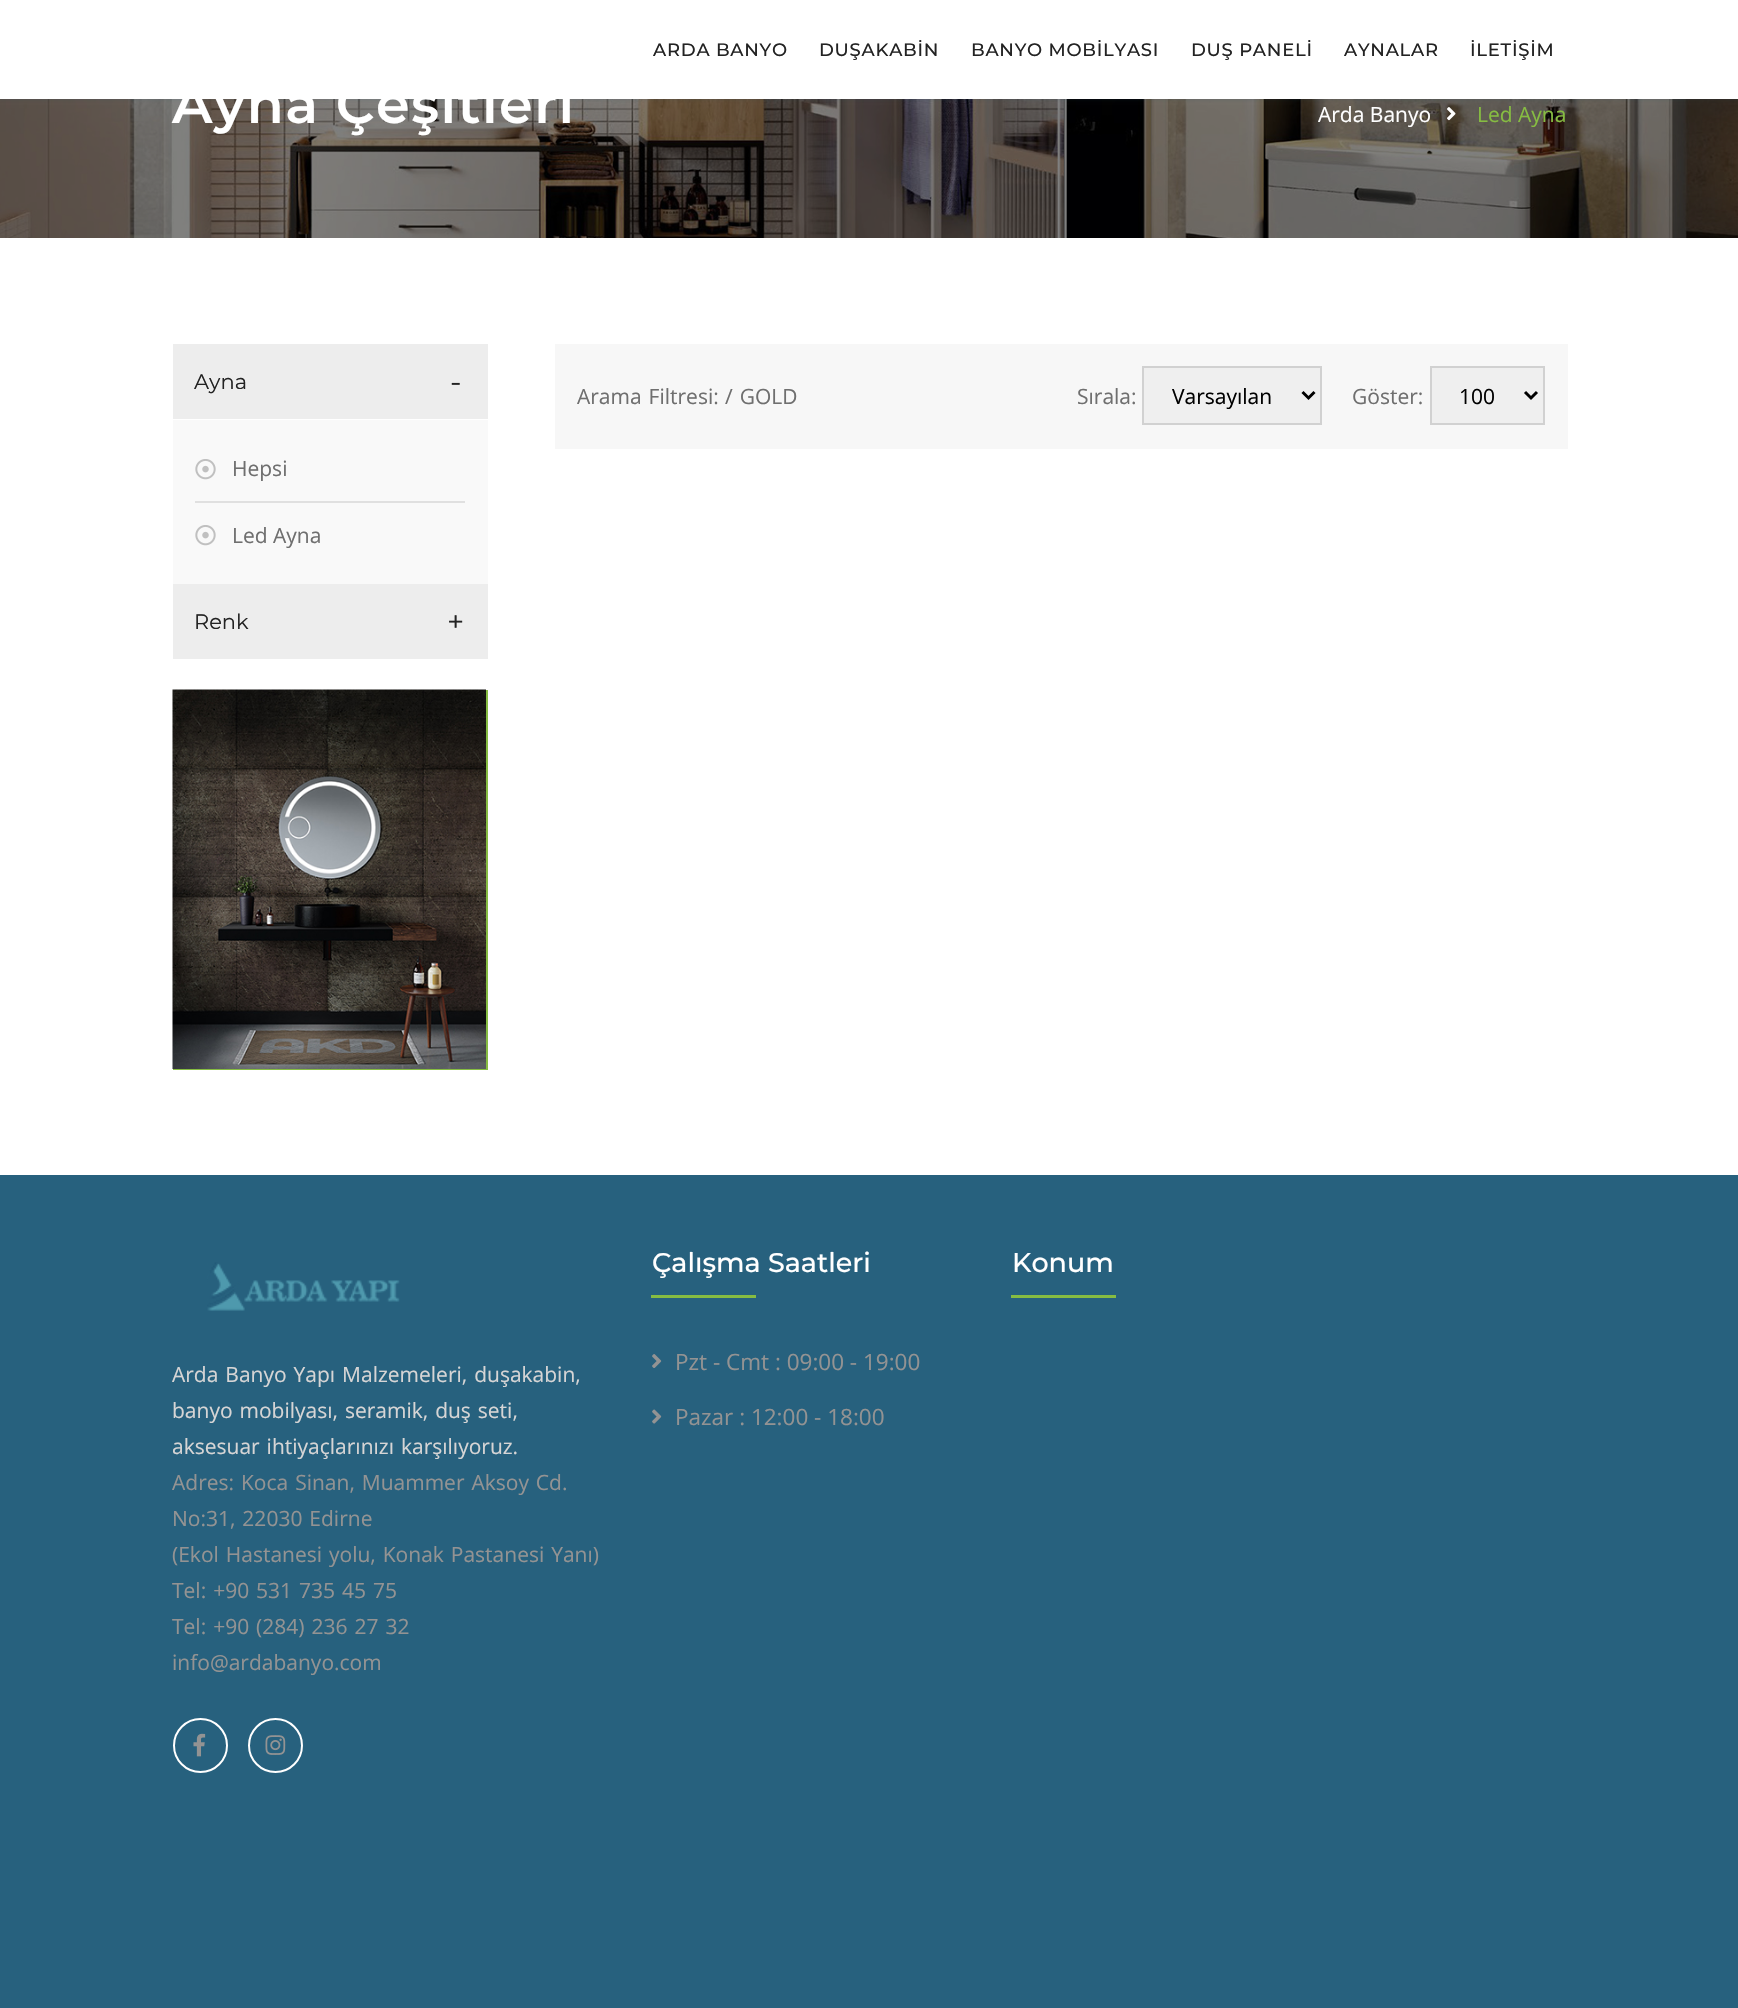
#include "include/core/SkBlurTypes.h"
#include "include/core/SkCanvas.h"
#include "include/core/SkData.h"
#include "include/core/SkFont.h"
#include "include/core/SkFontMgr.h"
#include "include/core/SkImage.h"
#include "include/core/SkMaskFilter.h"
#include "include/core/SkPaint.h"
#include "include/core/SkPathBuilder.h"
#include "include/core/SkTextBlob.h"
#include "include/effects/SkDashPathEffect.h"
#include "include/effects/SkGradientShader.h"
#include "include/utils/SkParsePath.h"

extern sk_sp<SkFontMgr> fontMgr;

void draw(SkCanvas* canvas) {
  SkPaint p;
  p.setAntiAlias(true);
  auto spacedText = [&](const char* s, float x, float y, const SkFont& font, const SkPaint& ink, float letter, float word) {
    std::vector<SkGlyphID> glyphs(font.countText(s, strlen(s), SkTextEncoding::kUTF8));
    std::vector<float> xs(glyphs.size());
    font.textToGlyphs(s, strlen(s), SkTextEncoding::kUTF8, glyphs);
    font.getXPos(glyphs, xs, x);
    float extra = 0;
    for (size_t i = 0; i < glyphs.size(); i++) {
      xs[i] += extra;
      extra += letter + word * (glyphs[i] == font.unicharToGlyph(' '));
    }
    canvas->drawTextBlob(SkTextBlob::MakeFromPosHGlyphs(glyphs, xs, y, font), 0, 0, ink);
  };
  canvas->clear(SK_ColorWHITE);
  canvas->drawImageRect(SkImages::DeferredFromEncodedData(SkData::MakeFromFileName("images/1.png")), SkRect::MakeLTRB(0, 99, 1738, 238), SkSamplingOptions());
  p.setColor(SkColorSetARGB(51, 39, 97, 126));
  p.setMaskFilter(SkMaskFilter::MakeBlur(kNormal_SkBlurStyle, 2));
  canvas->drawRect(SkRect::MakeLTRB(0, 0, 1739, 99), p);
  p.setMaskFilter(nullptr);
  p.setColor(SK_ColorWHITE);
  canvas->drawRect(SkRect::MakeLTRB(0, 0, 1738, 99), p);
  canvas->drawImageRect(SkImages::DeferredFromEncodedData(SkData::MakeFromFileName("images/2.png")), SkRect::MakeLTRB(1447, 107, 1456, 121), SkSamplingOptions());
  p.setColor(SkColorSetRGB(237, 237, 237));
  canvas->drawRect(SkRect::MakeLTRB(173, 344, 488, 419), p);
  p.setColor(SkColorSetRGB(249, 249, 249));
  canvas->drawRect(SkRect::MakeLTRB(173, 420, 488, 584), p);
  p.setColor(SkColorSetRGB(224, 224, 224));
  canvas->drawRect(SkRect::MakeLTRB(195, 501, 465, 503), p);
  canvas->drawImageRect(SkImages::DeferredFromEncodedData(SkData::MakeFromFileName("images/3.png")), SkRect::MakeLTRB(195, 459, 216, 480), SkSamplingOptions());
  canvas->drawImageRect(SkImages::DeferredFromEncodedData(SkData::MakeFromFileName("images/3.png")), SkRect::MakeLTRB(195, 525, 216, 546), SkSamplingOptions());
  p.setColor(SkColorSetRGB(237, 237, 237));
  canvas->drawRect(SkRect::MakeLTRB(173, 584, 488, 659), p);
  p.setColor(SkColorSetRGB(134, 188, 66));
  canvas->drawRect(SkRect::MakeLTRB(173, 690, 488, 1070), p);
  canvas->drawImageRect(SkImages::DeferredFromEncodedData(SkData::MakeFromFileName("images/4.png")), SkRect::MakeLTRB(172, 689, 486, 1069), SkSamplingOptions());
  p.setColor(SkColorSetRGB(247, 247, 247));
  canvas->drawRect(SkRect::MakeLTRB(555, 344, 1568, 449), p);
  p.setColor(SkColorSetRGB(239, 239, 239));
  canvas->drawRect(SkRect::MakeLTRB(1143, 367, 1321, 424), p);
  p.setStyle(SkPaint::kStroke_Style);
  p.setStrokeWidth(2);
  p.setColor(SkColorSetRGB(209, 209, 209));
  canvas->drawRect(SkRect::MakeLTRB(1143, 367, 1321, 424), p);
  p.setStrokeWidth(3);
  p.setColor(SK_ColorBLACK);
  canvas->drawPath(SkPathBuilder().moveTo(1302.5f, 392).lineTo(1308.5f, 398).lineTo(1314.5f, 392).detach(), p);
  p.setStyle(SkPaint::kFill_Style);
  p.setColor(SkColorSetRGB(239, 239, 239));
  canvas->drawRect(SkRect::MakeLTRB(1431, 367, 1544, 424), p);
  p.setStyle(SkPaint::kStroke_Style);
  p.setStrokeWidth(2);
  p.setColor(SkColorSetRGB(209, 209, 209));
  canvas->drawRect(SkRect::MakeLTRB(1431, 367, 1544, 424), p);
  p.setStrokeWidth(3);
  p.setColor(SK_ColorBLACK);
  canvas->drawPath(SkPathBuilder().moveTo(1525, 392).lineTo(1531, 398).lineTo(1537, 392).detach(), p);
  p.setStyle(SkPaint::kFill_Style);
  p.setColor(SkColorSetRGB(39, 97, 126));
  canvas->drawRect(SkRect::MakeLTRB(0, 1175, 1738, 2008), p);
  p.setColor(SkColorSetRGB(134, 188, 66));
  canvas->drawRect(SkRect::MakeLTRB(651, 1295, 756, 1298), p);
  canvas->drawImageRect(SkImages::DeferredFromEncodedData(SkData::MakeFromFileName("images/5.png")), SkRect::MakeLTRB(652, 1354, 662, 1368), SkSamplingOptions());
  canvas->drawImageRect(SkImages::DeferredFromEncodedData(SkData::MakeFromFileName("images/6.png")), SkRect::MakeLTRB(652, 1409, 662, 1424), SkSamplingOptions());
  canvas->drawRect(SkRect::MakeLTRB(1011, 1295, 1116, 1298), p);
  canvas->drawImageRect(SkImages::DeferredFromEncodedData(SkData::MakeFromFileName("images/7.png")), SkRect::MakeLTRB(207, 1262, 400, 1311), SkSamplingOptions());
  p.setStyle(SkPaint::kStroke_Style);
  p.setStrokeWidth(2);
  p.setColor(SK_ColorWHITE);
  canvas->drawCircle(200.5f, 1745.5f, 26.5f, p);
  canvas->drawImageRect(SkImages::DeferredFromEncodedData(SkData::MakeFromFileName("images/8.png")), SkRect::MakeLTRB(193, 1733, 206, 1757), SkSamplingOptions());
  canvas->drawCircle(275.5f, 1745.5f, 26.5f, p);
  canvas->drawImageRect(SkImages::DeferredFromEncodedData(SkData::MakeFromFileName("images/9.png")), SkRect::MakeLTRB(265, 1735, 286, 1755), SkSamplingOptions());
  SkFont font1(fontMgr->matchFamilyStyle("Montserrat", SkFontStyle(500, SkFontStyle::kNormal_Width, SkFontStyle::kUpright_Slant)), 18);
  font1.setSubpixel(true);
  p.setStyle(SkPaint::kFill_Style);
  p.setColor(SkColorSetRGB(35, 35, 35));
  spacedText("ARDA BANYO", 653, 56, font1, p, 0.75f, 0);
  spacedText("DUŞAKABİN", 819, 56, font1, p, 0.75f, 0);
  spacedText("BANYO MOBİLYASI", 971, 56, font1, p, 0.75f, 0);
  spacedText("DUŞ PANELİ", 1191, 56, font1, p, 0.75f, 0);
  spacedText("AYNALAR", 1344, 56, font1, p, 0.75f, 0);
  spacedText("İLETİŞİM", 1470, 56, font1, p, 0.75f, 0);
  SkFont font2(fontMgr->matchFamilyStyle("Montserrat", SkFontStyle(600, SkFontStyle::kNormal_Width, SkFontStyle::kUpright_Slant)), 54);
  font2.setSubpixel(true);
  p.setColor(SK_ColorWHITE);
  spacedText("Ayna Çeşitleri", 172, 123, font2, p, 1.5f, 0);
  SkFont font3(fontMgr->matchFamilyStyle("Open Sans", SkFontStyle::Normal()), 21);
  font3.setSubpixel(true);
  canvas->drawString("Arda Banyo", 1318, 122, font3, p);
  p.setColor(SkColorSetRGB(134, 188, 66));
  canvas->drawString("Led Ayna", 1477, 122, font3, p);
  SkFont font4(fontMgr->matchFamilyStyle("Montserrat", SkFontStyle::Normal()), 21);
  font4.setSubpixel(true);
  p.setColor(SkColorSetRGB(35, 35, 35));
  canvas->drawString("Ayna", 194, 389, font4, p);
  SkFont font5(fontMgr->matchFamilyStyle("Montserrat", SkFontStyle::Normal()), 30);
  font5.setSubpixel(true);
  canvas->drawString("-", 450, 392, font5, p);
  p.setColor(SkColorSetRGB(111, 111, 111));
  canvas->drawString("Hepsi", 232, 476, font3, p);
  canvas->drawString("Led Ayna", 232, 543, font3, p);
  p.setColor(SkColorSetRGB(35, 35, 35));
  canvas->drawString("Renk", 194, 629, font4, p);
  canvas->drawString("+", 447, 632, font5, p);
  p.setColor(SkColorSetRGB(111, 111, 111));
  spacedText("Arama Filtresi:", 577, 404, font3, p, 0, 1.5f);
  spacedText("/ GOLD", 725, 404, font3, p, 0, 1.5f);
  canvas->drawString("Sırala:", 1077, 404, font3, p);
  p.setColor(SK_ColorBLACK);
  canvas->drawString("Varsayılan", 1172, 404, font3, p);
  p.setColor(SkColorSetRGB(111, 111, 111));
  canvas->drawString("Göster:", 1352, 404, font3, p);
  p.setColor(SK_ColorBLACK);
  canvas->drawString("100", 1459, 404, font3, p);
  SkFont font6(fontMgr->matchFamilyStyle("Montserrat", SkFontStyle(500, SkFontStyle::kNormal_Width, SkFontStyle::kUpright_Slant)), 27);
  font6.setSubpixel(true);
  p.setColor(SK_ColorWHITE);
  canvas->drawString("Çalışma Saatleri", 652, 1272, font6, p);
  SkFont font7(fontMgr->matchFamilyStyle("Open Sans", SkFontStyle::Normal()), 22.5f);
  font7.setSubpixel(true);
  p.setColor(SkColorSetRGB(147, 147, 147));
  canvas->drawString("Pzt - Cmt : 09:00 - 19:00", 675, 1370, font7, p);
  canvas->drawString("Pazar : 12:00 - 18:00", 675, 1425, font7, p);
  p.setColor(SK_ColorWHITE);
  canvas->drawString("Konum", 1012, 1272, font6, p);
  p.setColor(SkColorSetRGB(214, 213, 213));
  spacedText("Arda Banyo Yapı Malzemeleri, duşakabin,", 172, 1382, font3, p, 0, 1.5f);
  spacedText("banyo mobilyası, seramik, duş seti,", 172, 1418, font3, p, 0, 1.5f);
  spacedText("aksesuar ihtiyaçlarınızı karşılıyoruz.", 172, 1454, font3, p, 0, 1.5f);
  p.setColor(SkColorSetRGB(147, 147, 147));
  spacedText("Adres: Koca Sinan, Muammer Aksoy Cd.", 172, 1490, font3, p, 0, 1.5f);
  spacedText("No:31, 22030 Edirne", 172, 1526, font3, p, 0, 1.5f);
  spacedText("(Ekol Hastanesi yolu, Konak Pastanesi Yanı)", 172, 1562, font3, p, 0, 1.5f);
  spacedText("Tel: +90 531 735 45 75", 172, 1598, font3, p, 0, 1.5f);
  spacedText("Tel: +90 (284) 236 27 32", 172, 1634, font3, p, 0, 1.5f);
  canvas->drawString("info@ardabanyo.com", 172, 1670, font3, p);
}
